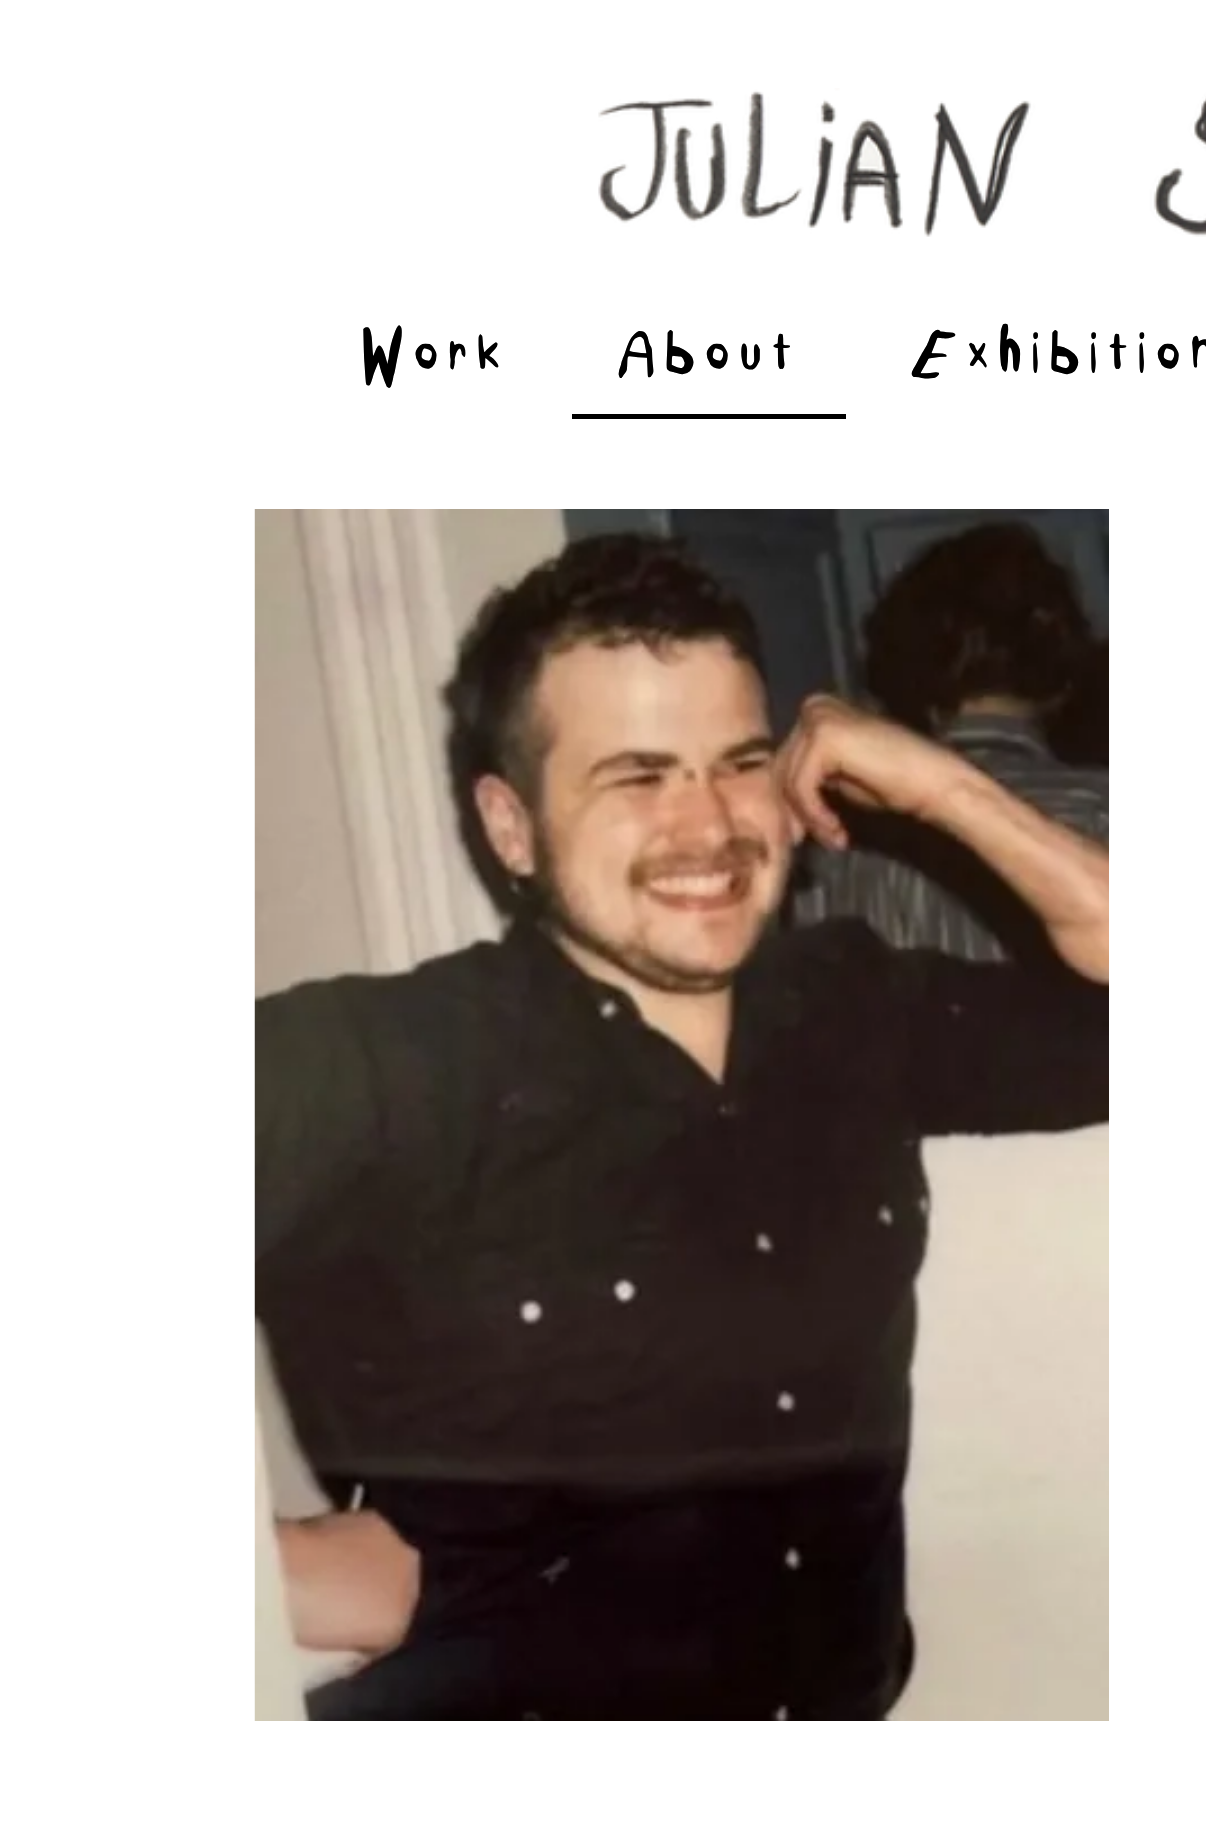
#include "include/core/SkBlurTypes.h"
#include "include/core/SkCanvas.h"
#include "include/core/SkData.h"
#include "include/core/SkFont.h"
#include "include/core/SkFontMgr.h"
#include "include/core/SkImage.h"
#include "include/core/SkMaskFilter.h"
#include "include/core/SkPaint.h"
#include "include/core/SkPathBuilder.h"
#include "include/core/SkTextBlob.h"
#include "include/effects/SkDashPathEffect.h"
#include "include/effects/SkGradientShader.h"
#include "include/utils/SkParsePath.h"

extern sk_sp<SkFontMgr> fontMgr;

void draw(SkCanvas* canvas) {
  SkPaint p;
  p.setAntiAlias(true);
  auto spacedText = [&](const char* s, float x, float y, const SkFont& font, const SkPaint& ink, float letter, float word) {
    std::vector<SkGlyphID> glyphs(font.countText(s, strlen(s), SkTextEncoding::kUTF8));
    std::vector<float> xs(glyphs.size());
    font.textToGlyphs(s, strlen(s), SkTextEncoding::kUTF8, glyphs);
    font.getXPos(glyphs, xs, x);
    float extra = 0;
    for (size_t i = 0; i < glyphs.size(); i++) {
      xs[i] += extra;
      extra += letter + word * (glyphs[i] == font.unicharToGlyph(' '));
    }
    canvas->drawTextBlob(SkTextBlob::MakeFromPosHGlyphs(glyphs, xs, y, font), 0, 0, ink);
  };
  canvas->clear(SK_ColorWHITE);
  canvas->drawImageRect(SkImages::DeferredFromEncodedData(SkData::MakeFromFileName("images/1.png")), SkRect::MakeLTRB(598, 88, 1206, 237), SkSamplingOptions());
  p.setColor(SK_ColorBLACK);
  canvas->drawRect(SkRect::MakeLTRB(572, 414, 846, 419), p);
  canvas->drawImageRect(SkImages::DeferredFromEncodedData(SkData::MakeFromFileName("images/2.png")), SkRect::MakeLTRB(254, 509, 1109, 1721), SkSamplingOptions());
  SkFont font1(fontMgr->matchFamilyStyle("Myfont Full", SkFontStyle::Normal()), 65.25f);
  font1.setSubpixel(true);
  spacedText("Work", 360, 376, font1, p, 6.5f, 0);
  spacedText("About", 615, 376, font1, p, 6.5f, 0);
  spacedText("Exhibition", 908, 376, font1, p, 6.5f, 0);
}
